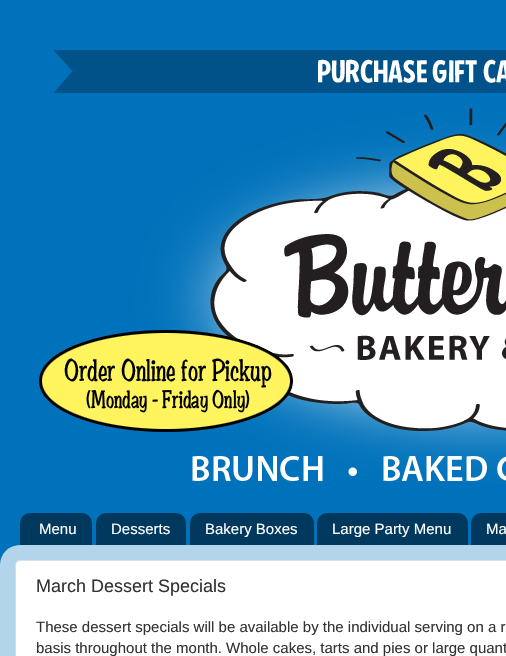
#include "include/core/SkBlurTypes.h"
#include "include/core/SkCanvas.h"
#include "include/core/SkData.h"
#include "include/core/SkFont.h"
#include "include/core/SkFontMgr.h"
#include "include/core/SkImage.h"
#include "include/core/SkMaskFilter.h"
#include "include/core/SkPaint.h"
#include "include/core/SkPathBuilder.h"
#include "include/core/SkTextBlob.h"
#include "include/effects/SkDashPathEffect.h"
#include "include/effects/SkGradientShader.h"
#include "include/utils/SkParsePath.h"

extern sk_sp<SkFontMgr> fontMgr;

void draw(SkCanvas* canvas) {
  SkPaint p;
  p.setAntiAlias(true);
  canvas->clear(SkColorSetRGB(0, 114, 187));
  canvas->drawImageRect(SkImages::DeferredFromEncodedData(SkData::MakeFromFileName("images/1.png")), SkRect::MakeLTRB(39, 50, 506, 482), SkSamplingOptions());
  canvas->drawImageRect(SkImages::DeferredFromEncodedData(SkData::MakeFromFileName("images/2.png")), SkRect::MakeLTRB(20, 513, 92, 545), SkSamplingOptions());
  canvas->drawImageRect(SkImages::DeferredFromEncodedData(SkData::MakeFromFileName("images/3.png")), SkRect::MakeLTRB(96, 513, 186, 545), SkSamplingOptions());
  canvas->drawImageRect(SkImages::DeferredFromEncodedData(SkData::MakeFromFileName("images/4.png")), SkRect::MakeLTRB(190, 513, 314, 545), SkSamplingOptions());
  canvas->drawImageRect(SkImages::DeferredFromEncodedData(SkData::MakeFromFileName("images/5.png")), SkRect::MakeLTRB(317, 513, 468, 545), SkSamplingOptions());
  canvas->drawImageRect(SkImages::DeferredFromEncodedData(SkData::MakeFromFileName("images/6.png")), SkRect::MakeLTRB(471, 513, 506, 545), SkSamplingOptions());
  canvas->drawImageRect(SkImages::DeferredFromEncodedData(SkData::MakeFromFileName("images/7.png")), SkRect::MakeLTRB(0, 545, 506, 656), SkSamplingOptions());
  p.setColor(SK_ColorWHITE);
  canvas->drawRoundRect(SkRect::MakeLTRB(15.5f, 560.5f, 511.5f, 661.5f), 4.5f, 4.5f, p);
  p.setStyle(SkPaint::kStroke_Style);
  p.setStrokeWidth(1);
  p.setColor(SkColorSetRGB(221, 221, 221));
  canvas->drawRoundRect(SkRect::MakeLTRB(15.5f, 560.5f, 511.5f, 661.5f), 4.5f, 4.5f, p);
  SkFont font1(fontMgr->matchFamilyStyle("Liberation Sans", SkFontStyle::Normal()), 15);
  font1.setSubpixel(true);
  p.setStyle(SkPaint::kFill_Style);
  p.setColor(SK_ColorWHITE);
  canvas->drawString("Menu", 39, 534, font1, p);
  canvas->drawString("Desserts", 111, 534, font1, p);
  canvas->drawString("Bakery Boxes", 205, 534, font1, p);
  canvas->drawString("Large Party Menu", 332, 534, font1, p);
  canvas->drawString("Ma", 486, 534, font1, p);
  SkFont font2(fontMgr->matchFamilyStyle("Liberation Sans", SkFontStyle::Normal()), 18);
  font2.setSubpixel(true);
  p.setColor(SkColorSetRGB(51, 51, 51));
  canvas->drawString("March Dessert Specials", 36, 592, font2, p);
  canvas->drawString("These dessert specials will be available by the individual serving on a r", 36, 632, font1, p);
  canvas->drawString("basis throughout the month. Whole cakes, tarts and pies or large quant", 36, 653, font1, p);
}
